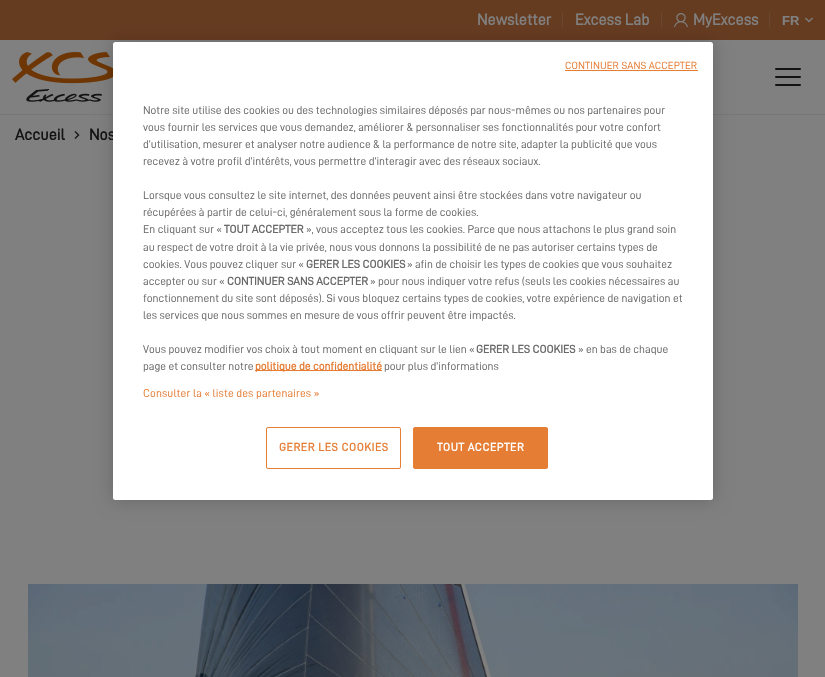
#include "include/core/SkBlurTypes.h"
#include "include/core/SkCanvas.h"
#include "include/core/SkData.h"
#include "include/core/SkFont.h"
#include "include/core/SkFontMgr.h"
#include "include/core/SkImage.h"
#include "include/core/SkMaskFilter.h"
#include "include/core/SkPaint.h"
#include "include/core/SkPathBuilder.h"
#include "include/core/SkTextBlob.h"
#include "include/effects/SkDashPathEffect.h"
#include "include/effects/SkGradientShader.h"
#include "include/utils/SkParsePath.h"

extern sk_sp<SkFontMgr> fontMgr;

void draw(SkCanvas* canvas) {
  SkPaint p;
  p.setAntiAlias(true);
  auto spacedText = [&](const char* s, float x, float y, const SkFont& font, const SkPaint& ink, float letter, float word) {
    std::vector<SkGlyphID> glyphs(font.countText(s, strlen(s), SkTextEncoding::kUTF8));
    std::vector<float> xs(glyphs.size());
    font.textToGlyphs(s, strlen(s), SkTextEncoding::kUTF8, glyphs);
    font.getXPos(glyphs, xs, x);
    float extra = 0;
    for (size_t i = 0; i < glyphs.size(); i++) {
      xs[i] += extra;
      extra += letter + word * (glyphs[i] == font.unicharToGlyph(' '));
    }
    canvas->drawTextBlob(SkTextBlob::MakeFromPosHGlyphs(glyphs, xs, y, font), 0, 0, ink);
  };
  canvas->clear(SkColorSetRGB(128, 128, 128));
  p.setColor(SkColorSetRGB(102, 60, 33));
  canvas->drawRect(SkRect::MakeLTRB(0, 0, 825, 40), p);
  p.setColor(SkColorSetRGB(105, 72, 50));
  canvas->drawRect(SkRect::MakeLTRB(562, 12, 563, 28), p);
  canvas->drawRect(SkRect::MakeLTRB(661, 12, 662, 28), p);
  canvas->drawImageRect(SkImages::DeferredFromEncodedData(SkData::MakeFromFileName("images/1.png")), SkRect::MakeLTRB(674, 13, 688, 27), SkSamplingOptions());
  canvas->drawRect(SkRect::MakeLTRB(769, 12, 770, 28), p);
  canvas->drawImageRect(SkImages::DeferredFromEncodedData(SkData::MakeFromFileName("images/2.png")), SkRect::MakeLTRB(805, 17, 813, 23), SkSamplingOptions());
  canvas->drawImageRect(SkImages::DeferredFromEncodedData(SkData::MakeFromFileName("images/3.png")), SkRect::MakeLTRB(12, 52, 113, 102), SkSamplingOptions());
  p.setColor(SkColorSetRGB(19, 19, 19));
  canvas->drawRoundRect(SkRect::MakeLTRB(775, 68, 801, 70), 1, 1, p);
  canvas->drawRoundRect(SkRect::MakeLTRB(775, 76, 801, 78), 1, 1, p);
  canvas->drawRoundRect(SkRect::MakeLTRB(775, 84, 801, 86), 1, 1, p);
  p.setColor(SkColorSetRGB(120, 119, 117));
  canvas->drawRect(SkRect::MakeLTRB(0, 114, 825, 115), p);
  canvas->drawImageRect(SkImages::DeferredFromEncodedData(SkData::MakeFromFileName("images/4.png")), SkRect::MakeLTRB(74, 131, 80, 139), SkSamplingOptions());
  canvas->drawImageRect(SkImages::DeferredFromEncodedData(SkData::MakeFromFileName("images/5.png")), SkRect::MakeLTRB(28, 584, 798, 677), SkSamplingOptions());
  p.setColor(SkColorSetARGB(51, 0, 0, 0));
  p.setMaskFilter(SkMaskFilter::MakeBlur(kNormal_SkBlurStyle, 9));
  canvas->drawRoundRect(SkRect::MakeLTRB(113, 42, 713, 500), 2.5f, 2.5f, p);
  p.setMaskFilter(nullptr);
  SkFont font1(fontMgr->matchFamilyStyle("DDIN", SkFontStyle::Bold()), 16);
  font1.setSubpixel(true);
  p.setColor(SkColorSetRGB(128, 128, 128));
  canvas->drawString("Newsletter", 477, 25, font1, p);
  canvas->drawString("Excess Lab", 575, 25, font1, p);
  canvas->drawString("MyExcess", 693, 25, font1, p);
  SkFont font2(fontMgr->matchFamilyStyle("Liberation Sans", SkFontStyle::Bold()), 13);
  font2.setSubpixel(true);
  canvas->drawString("FR", 782, 25, font2, p);
  p.setColor(SkColorSetRGB(19, 19, 19));
  canvas->drawString("Accueil", 15, 140, font1, p);
  canvas->drawString("Nos", 89, 140, font1, p);
  p.setColor(SK_ColorWHITE);
  canvas->drawRoundRect(SkRect::MakeLTRB(113, 42, 713, 500), 2.5f, 2.5f, p);
  SkFont font3(fontMgr->matchFamilyStyle("DDIN", SkFontStyle::Normal()), 10.5f);
  font3.setSubpixel(true);
  p.setColor(SkColorSetRGB(230, 125, 53));
  spacedText("CONTINUER SANS ACCEPTER", 565, 69, font3, p, 0.1f, 0);
  canvas->drawRect(SkRect::MakeLTRB(565, 70, 698, 71), p);
  SkFont font4(fontMgr->matchFamilyStyle("DDIN", SkFontStyle::Normal()), 11.4f);
  font4.setSubpixel(true);
  p.setColor(SkColorSetRGB(105, 105, 105));
  canvas->drawString("Notre site utilise des cookies ou des technologies similaires déposés par nous-mêmes ou nos partenaires pour", 143, 114, font4, p);
  canvas->drawString("vous fournir les services que vous demandez, améliorer & personnaliser ses fonctionnalités pour votre confort", 143, 131, font4, p);
  canvas->drawString("d’utilisation, mesurer et analyser notre audience & la performance de notre site, adapter la publicité que vous", 143, 148, font4, p);
  canvas->drawString("recevez à votre profil d’intérêts, vous permettre d’interagir avec des réseaux sociaux.", 143, 165, font4, p);
  canvas->drawString("Lorsque vous consultez le site internet, des données peuvent ainsi être stockées dans votre navigateur ou", 143, 199, font4, p);
  canvas->drawString("récupérées à partir de celui-ci, généralement sous la forme de cookies.", 143, 216, font4, p);
  canvas->drawString("En cliquant sur «", 143, 233, font4, p);
  SkFont font5(fontMgr->matchFamilyStyle("DDIN", SkFontStyle::Bold()), 11.4f);
  font5.setSubpixel(true);
  canvas->drawString("TOUT ACCEPTER", 224, 233, font5, p);
  canvas->drawString("», vous acceptez tous les cookies. Parce que nous attachons le plus grand soin", 306, 233, font4, p);
  canvas->drawString("au respect de votre droit à la vie privée, nous vous donnons la possibilité de ne pas autoriser certains types de", 143, 251, font4, p);
  canvas->drawString("cookies. Vous pouvez cliquer sur «", 143, 268, font4, p);
  canvas->drawString("GERER LES COOKIES", 306, 268, font5, p);
  canvas->drawString("» afin de choisir les types de cookies que vous souhaitez", 407, 268, font4, p);
  canvas->drawString("accepter ou sur «", 143, 285, font4, p);
  canvas->drawString("CONTINUER SANS ACCEPTER", 227, 285, font5, p);
  canvas->drawString("» pour nous indiquer votre refus (seuls les cookies nécessaires au", 370, 285, font4, p);
  canvas->drawString("fonctionnement du site sont déposés). Si vous bloquez certains types de cookies, votre expérience de navigation et", 143, 302, font4, p);
  canvas->drawString("les services que nous sommes en mesure de vous offrir peuvent être impactés.", 143, 319, font4, p);
  canvas->drawString("Vous pouvez modifier vos choix à tout moment en cliquant sur le lien «", 143, 353, font4, p);
  canvas->drawString("GERER LES COOKIES", 476, 353, font5, p);
  canvas->drawString("» en bas de chaque", 578, 353, font4, p);
  canvas->drawString("page et consulter notre", 143, 370, font4, p);
  p.setColor(SkColorSetRGB(230, 125, 53));
  canvas->drawRect(SkRect::MakeLTRB(255, 370, 382, 371), p);
  canvas->drawString("politique de confidentialité", 255, 370, font5, p);
  p.setColor(SkColorSetRGB(105, 105, 105));
  canvas->drawString("pour plus d’informations", 384, 370, font4, p);
  p.setColor(SkColorSetRGB(230, 125, 53));
  spacedText("Consulter la « liste des partenaires »", 143, 397, font4, p, 0.1f, 0);
  p.setStyle(SkPaint::kStroke_Style);
  p.setStrokeWidth(1);
  canvas->drawRoundRect(SkRect::MakeLTRB(266.5f, 427.5f, 400.5f, 468.5f), 1.5f, 1.5f, p);
  p.setStyle(SkPaint::kFill_Style);
  spacedText("GERER LES COOKIES", 279, 451, font5, p, 0.6f, 0);
  canvas->drawRoundRect(SkRect::MakeLTRB(413.5f, 427.5f, 547.5f, 468.5f), 1.5f, 1.5f, p);
  p.setStyle(SkPaint::kStroke_Style);
  canvas->drawRoundRect(SkRect::MakeLTRB(413.5f, 427.5f, 547.5f, 468.5f), 1.5f, 1.5f, p);
  p.setStyle(SkPaint::kFill_Style);
  p.setColor(SK_ColorWHITE);
  spacedText("TOUT ACCEPTER", 437, 451, font5, p, 0.6f, 0);
}
